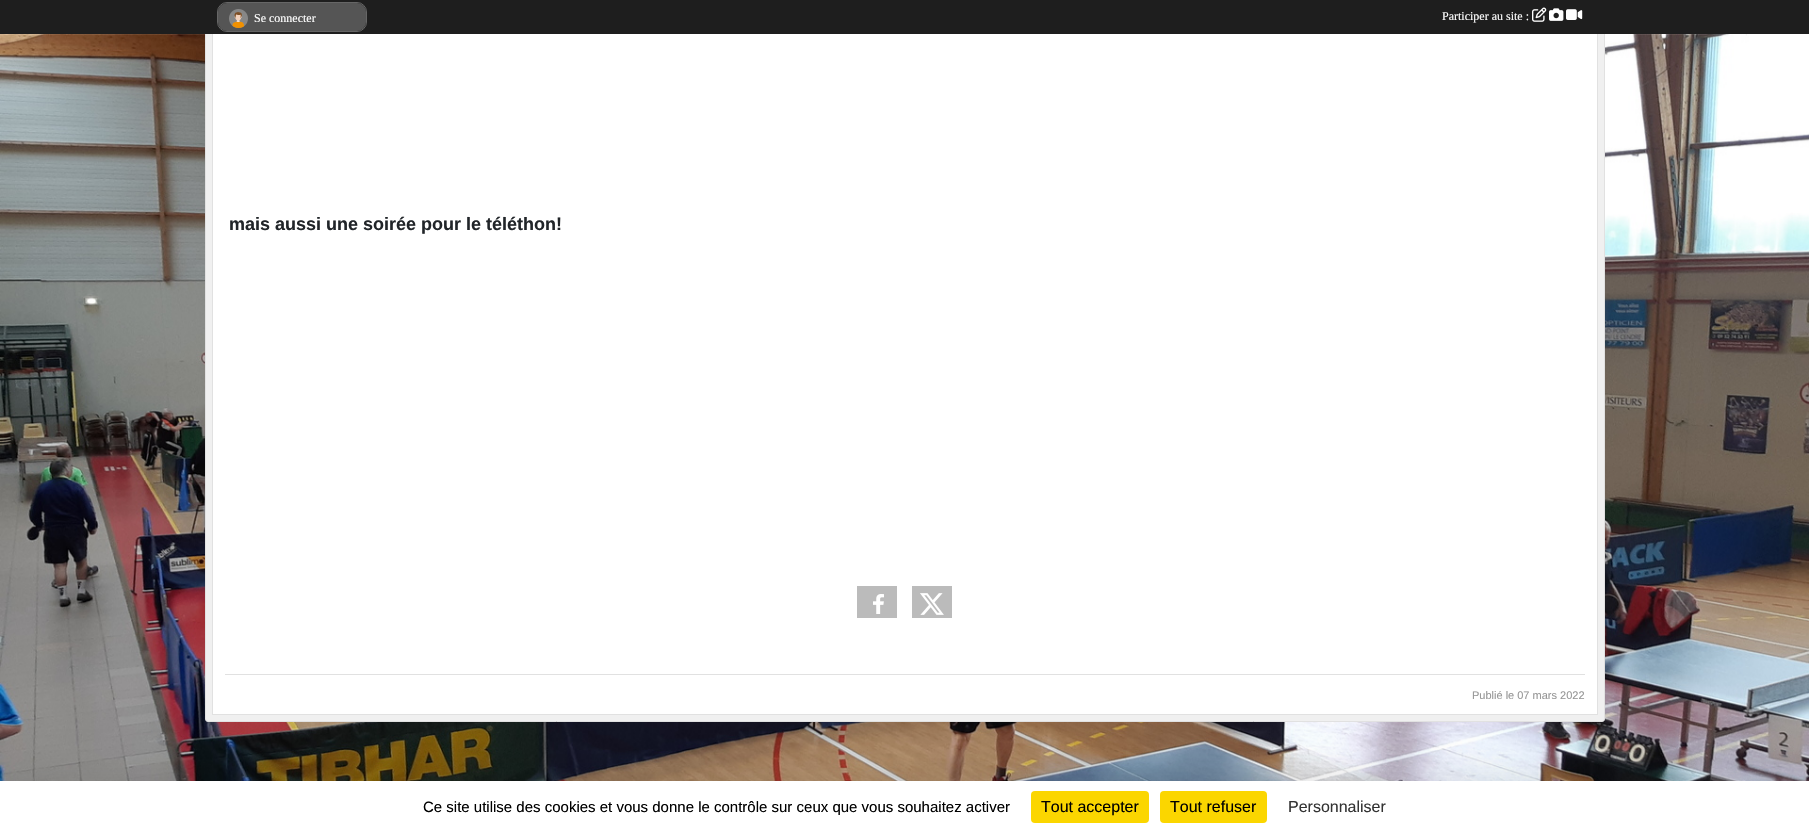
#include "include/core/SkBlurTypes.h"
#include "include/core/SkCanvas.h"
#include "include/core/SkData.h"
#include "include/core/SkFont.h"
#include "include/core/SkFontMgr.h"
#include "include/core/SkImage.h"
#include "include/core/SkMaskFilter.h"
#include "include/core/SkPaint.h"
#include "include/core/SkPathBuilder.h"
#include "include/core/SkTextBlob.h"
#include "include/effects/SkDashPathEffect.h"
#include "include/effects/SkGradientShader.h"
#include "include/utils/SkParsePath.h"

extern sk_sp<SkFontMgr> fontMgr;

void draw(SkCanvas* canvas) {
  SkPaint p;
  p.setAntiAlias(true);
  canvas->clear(SK_ColorWHITE);
  canvas->drawImageRect(SkImages::DeferredFromEncodedData(SkData::MakeFromFileName("images/1.png")), SkRect::MakeLTRB(0, 34, 1809, 781), SkSamplingOptions());
  p.setColor(SkColorSetRGB(240, 240, 240));
  canvas->drawRoundRect(SkRect::MakeLTRB(205.5f, -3.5f, 1604.5f, 721.5f), 2.5f, 2.5f, p);
  p.setStyle(SkPaint::kStroke_Style);
  p.setStrokeWidth(1);
  p.setColor(SkColorSetRGB(225, 225, 225));
  canvas->drawRoundRect(SkRect::MakeLTRB(205.5f, -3.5f, 1604.5f, 721.5f), 2.5f, 2.5f, p);
  p.setStyle(SkPaint::kFill_Style);
  p.setColor(SK_ColorWHITE);
  canvas->drawRect(SkRect::MakeLTRB(213, 34, 1597, 714), p);
  p.setStyle(SkPaint::kStroke_Style);
  p.setColor(SkColorSetRGB(225, 225, 225));
  canvas->drawRect(SkRect::MakeLTRB(212.5f, -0.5f, 1597.5f, 714.5f), p);
  p.setStyle(SkPaint::kFill_Style);
  p.setColor(SkColorSetRGB(30, 30, 30));
  canvas->drawRect(SkRect::MakeLTRB(0, 0, 1809, 34), p);
  p.setStyle(SkPaint::kStroke_Style);
  p.setColor(SkColorSetRGB(102, 102, 102));
  canvas->drawRoundRect(SkRect::MakeLTRB(217.5f, 2.5f, 366.5f, 31.5f), 9.5f, 9.5f, p);
  p.setStyle(SkPaint::kFill_Style);
  p.setColor(SkColorSetRGB(85, 85, 85));
  canvas->drawRoundRect(SkRect::MakeLTRB(218, 3, 366, 31), 9, 9, p);
  canvas->drawImageRect(SkImages::DeferredFromEncodedData(SkData::MakeFromFileName("images/2.png")), SkRect::MakeLTRB(229, 9, 248, 28), SkSamplingOptions());
  canvas->drawImageRect(SkImages::DeferredFromEncodedData(SkData::MakeFromFileName("images/3.png")), SkRect::MakeLTRB(1532, 7, 1547, 22), SkSamplingOptions());
  canvas->drawImageRect(SkImages::DeferredFromEncodedData(SkData::MakeFromFileName("images/4.png")), SkRect::MakeLTRB(1549, 8, 1564, 21), SkSamplingOptions());
  canvas->drawImageRect(SkImages::DeferredFromEncodedData(SkData::MakeFromFileName("images/5.png")), SkRect::MakeLTRB(1566, 9, 1583, 20), SkSamplingOptions());
  p.setColor(SkColorSetRGB(187, 187, 187));
  canvas->drawRect(SkRect::MakeLTRB(857, 586, 897, 618), p);
  canvas->drawImageRect(SkImages::DeferredFromEncodedData(SkData::MakeFromFileName("images/6.png")), SkRect::MakeLTRB(873, 594, 884, 614), SkSamplingOptions());
  canvas->drawRect(SkRect::MakeLTRB(912, 586, 952, 618), p);
  canvas->drawImageRect(SkImages::DeferredFromEncodedData(SkData::MakeFromFileName("images/7.png")), SkRect::MakeLTRB(920, 593, 944, 615), SkSamplingOptions());
  p.setColor(SkColorSetRGB(225, 225, 225));
  canvas->drawRect(SkRect::MakeLTRB(225, 674, 1585, 675), p);
  p.setColor(SkColorSetARGB(64, 0, 0, 0));
  p.setMaskFilter(SkMaskFilter::MakeBlur(kNormal_SkBlurStyle, 30));
  canvas->drawRect(SkRect::MakeLTRB(0, 801, 1809, 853), p);
  p.setMaskFilter(nullptr);
  p.setColor(SK_ColorWHITE);
  canvas->drawRect(SkRect::MakeLTRB(0, 781, 1809, 833), p);
  p.setColor(SkColorSetRGB(251, 214, 0));
  canvas->drawRoundRect(SkRect::MakeLTRB(1031, 791, 1149, 823), 4, 4, p);
  canvas->drawRoundRect(SkRect::MakeLTRB(1160, 791, 1267, 823), 4, 4, p);
  SkFont font1(fontMgr->matchFamilyStyle("Liberation Serif", SkFontStyle::Normal()), 12);
  font1.setSubpixel(true);
  p.setColor(SK_ColorWHITE);
  canvas->drawString("Se connecter", 254, 22, font1, p);
  canvas->drawString("Participer au site :", 1442, 20, font1, p);
  SkFont font2(fontMgr->matchFamilyStyle("Liberation Sans", SkFontStyle::Bold()), 18);
  font2.setSubpixel(true);
  p.setColor(SkColorSetRGB(33, 37, 41));
  canvas->drawString("mais aussi une soirée pour le téléthon!", 229, 230, font2, p);
  SkFont font3(fontMgr->matchFamilyStyle("Liberation Sans", SkFontStyle::Normal()), 11);
  font3.setSubpixel(true);
  p.setColor(SkColorSetRGB(150, 150, 150));
  canvas->drawString("Publié le 07 mars 2022", 1472, 699, font3, p);
  SkFont font4(fontMgr->matchFamilyStyle("Liberation Sans", SkFontStyle::Normal()), 15);
  font4.setSubpixel(true);
  p.setColor(SK_ColorBLACK);
  canvas->drawString("Ce site utilise des cookies et vous donne le contrôle sur ceux que vous souhaitez activer", 423, 812, font4, p);
  SkFont font5(fontMgr->matchFamilyStyle("Liberation Sans", SkFontStyle::Normal()), 16);
  font5.setSubpixel(true);
  canvas->drawString("Tout accepter", 1041, 812, font5, p);
  canvas->drawString("Tout refuser", 1170, 812, font5, p);
  p.setColor(SkColorSetRGB(51, 51, 51));
  canvas->drawString("Personnaliser", 1288, 812, font5, p);
}
